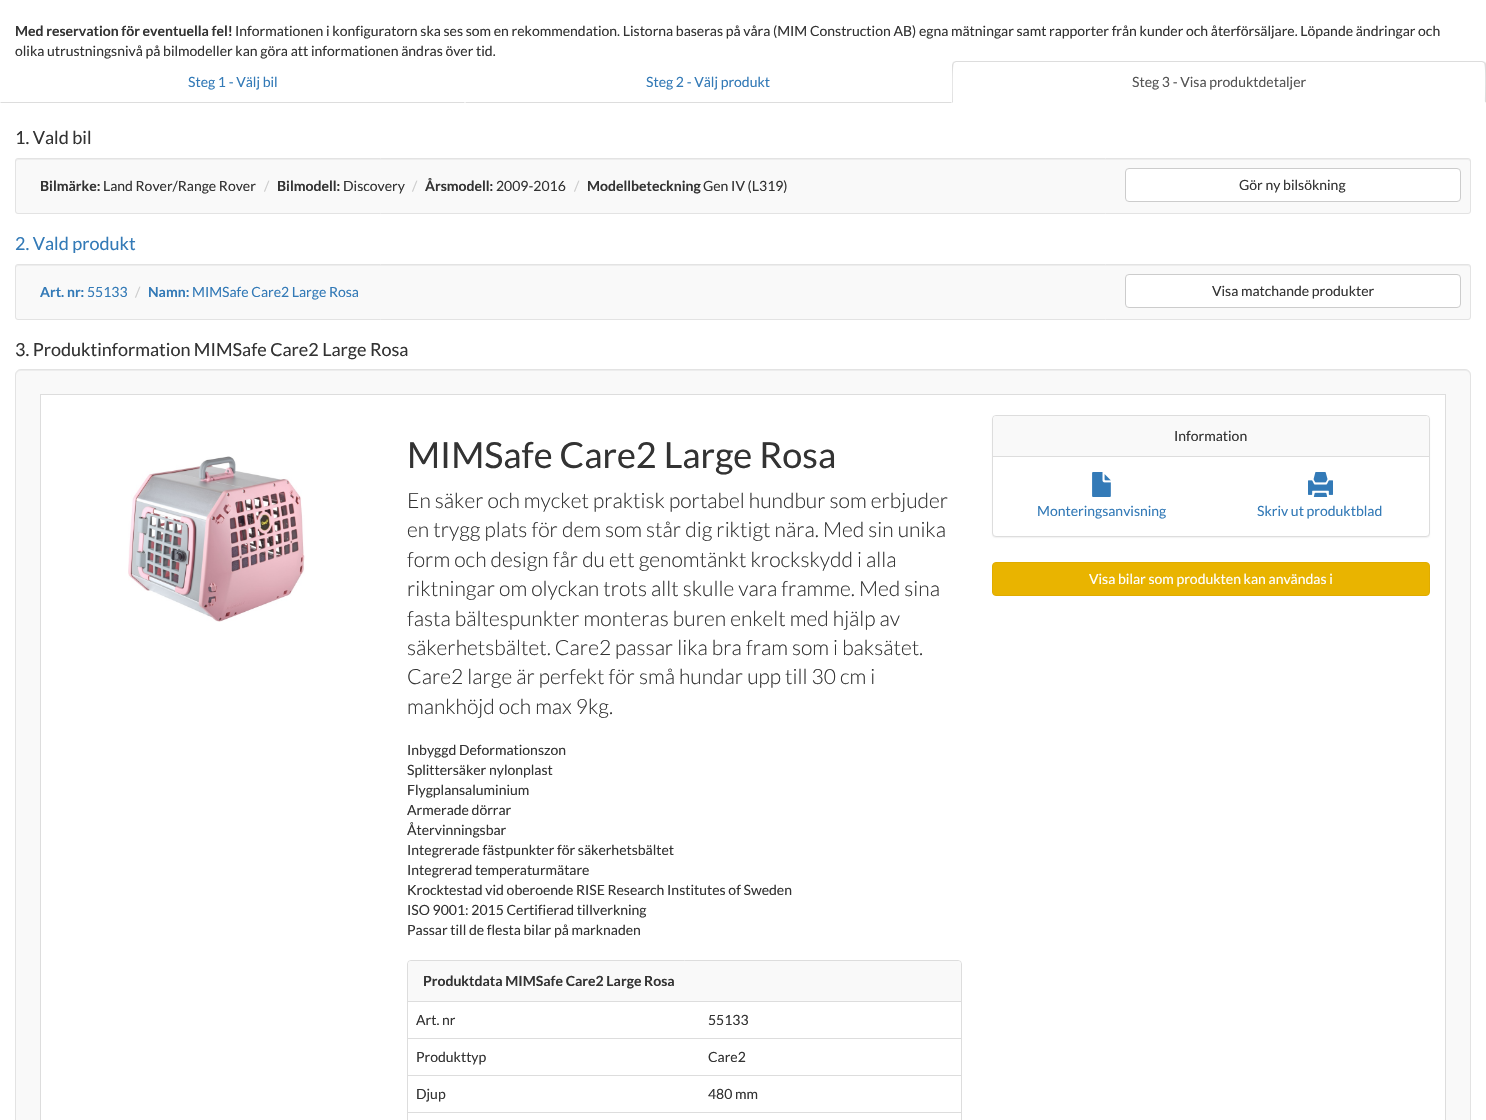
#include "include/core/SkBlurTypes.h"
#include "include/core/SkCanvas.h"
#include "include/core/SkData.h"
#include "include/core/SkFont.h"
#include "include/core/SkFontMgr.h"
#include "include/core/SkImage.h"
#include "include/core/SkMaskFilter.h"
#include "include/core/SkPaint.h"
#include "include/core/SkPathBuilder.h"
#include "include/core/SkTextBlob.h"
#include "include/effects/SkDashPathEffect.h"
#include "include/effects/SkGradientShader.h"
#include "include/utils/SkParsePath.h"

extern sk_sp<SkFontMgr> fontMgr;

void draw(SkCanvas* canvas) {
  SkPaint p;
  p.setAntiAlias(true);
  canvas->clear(SK_ColorWHITE);
  p.setColor(SkColorSetRGB(221, 221, 221));
  canvas->drawPath(SkPathBuilder().moveTo(465, 103).lineTo(464, 102).lineTo(1, 102).lineTo(0, 103).close().detach(), p);
  canvas->drawPath(SkPathBuilder().moveTo(952, 103).lineTo(951, 102).lineTo(466, 102).lineTo(465, 103).close().detach(), p);
  canvas->drawPath(SkPathBuilder().moveTo(956, 61).lineTo(953, 62).lineTo(954, 63).lineTo(956, 62).lineTo(1482, 62).lineTo(1484, 63).lineTo(1485, 62).lineTo(1482, 61).close().detach(), p);
  canvas->drawPath(SkPathBuilder().moveTo(1486, 103).lineTo(1486, 65).cubicTo(1486, 64, 1486, 63, 1485, 62).lineTo(1484, 63).cubicTo(1486, 65, 1485, 97, 1485, 102).close().detach(), p);
  p.setColor(SK_ColorWHITE);
  canvas->drawPath(SkPathBuilder().moveTo(1486, 103).lineTo(1485, 102).lineTo(953, 102).lineTo(952, 103).close().detach(), p);
  p.setColor(SkColorSetRGB(221, 221, 221));
  canvas->drawPath(SkPathBuilder().moveTo(952, 103).lineTo(953, 102).cubicTo(953, 97, 952, 65, 954, 63).lineTo(953, 62).lineTo(952, 65).close().detach(), p);
  p.setColor(SkColorSetRGB(249, 249, 249));
  canvas->drawRoundRect(SkRect::MakeLTRB(15, 158, 1471, 214), 3, 3, p);
  p.setColor(SkColorSetRGB(237, 237, 237));
  canvas->drawPath(SkPathBuilder().moveTo(18, 160).lineTo(1468, 160).cubicTo(1469, 160, 1470, 161, 1470, 162).lineTo(1470, 161).cubicTo(1470, 160, 1469, 159, 1468, 159).lineTo(18, 159).cubicTo(17, 159, 16, 160, 16, 161).lineTo(16, 162).cubicTo(16, 161, 17, 160, 18, 160).close().detach(), p);
  p.setStyle(SkPaint::kStroke_Style);
  p.setStrokeWidth(1);
  p.setColor(SkColorSetRGB(227, 227, 227));
  canvas->drawRoundRect(SkRect::MakeLTRB(15.5f, 158.5f, 1470.5f, 213.5f), 2.5f, 2.5f, p);
  p.setStyle(SkPaint::kFill_Style);
  p.setColor(SK_ColorWHITE);
  canvas->drawRoundRect(SkRect::MakeLTRB(1125.5f, 168.5f, 1460.5f, 201.5f), 3.5f, 3.5f, p);
  p.setStyle(SkPaint::kStroke_Style);
  p.setColor(SkColorSetRGB(204, 204, 204));
  canvas->drawRoundRect(SkRect::MakeLTRB(1125.5f, 168.5f, 1460.5f, 201.5f), 3.5f, 3.5f, p);
  p.setStyle(SkPaint::kFill_Style);
  p.setColor(SkColorSetRGB(249, 249, 249));
  canvas->drawRoundRect(SkRect::MakeLTRB(15, 264, 1471, 320), 3, 3, p);
  p.setColor(SkColorSetRGB(237, 237, 237));
  canvas->drawPath(SkPathBuilder().moveTo(18, 266).lineTo(1468, 266).cubicTo(1469, 266, 1470, 267, 1470, 268).lineTo(1470, 267).cubicTo(1470, 266, 1469, 265, 1468, 265).lineTo(18, 265).cubicTo(17, 265, 16, 266, 16, 267).lineTo(16, 268).cubicTo(16, 267, 17, 266, 18, 266).close().detach(), p);
  p.setStyle(SkPaint::kStroke_Style);
  p.setColor(SkColorSetRGB(227, 227, 227));
  canvas->drawRoundRect(SkRect::MakeLTRB(15.5f, 264.5f, 1470.5f, 319.5f), 2.5f, 2.5f, p);
  p.setStyle(SkPaint::kFill_Style);
  p.setColor(SK_ColorWHITE);
  canvas->drawRoundRect(SkRect::MakeLTRB(1125.5f, 274.5f, 1460.5f, 307.5f), 3.5f, 3.5f, p);
  p.setStyle(SkPaint::kStroke_Style);
  p.setColor(SkColorSetRGB(204, 204, 204));
  canvas->drawRoundRect(SkRect::MakeLTRB(1125.5f, 274.5f, 1460.5f, 307.5f), 3.5f, 3.5f, p);
  p.setStyle(SkPaint::kFill_Style);
  p.setColor(SkColorSetRGB(249, 249, 249));
  canvas->drawRoundRect(SkRect::MakeLTRB(15, 369, 1471, 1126), 6, 6, p);
  p.setColor(SkColorSetRGB(237, 237, 237));
  canvas->drawPath(SkPathBuilder().moveTo(21, 371).lineTo(1465, 371).cubicTo(1468, 371, 1470, 373, 1470, 376).lineTo(1470, 375).cubicTo(1470, 372, 1468, 370, 1465, 370).lineTo(21, 370).cubicTo(18, 370, 16, 372, 16, 375).lineTo(16, 376).cubicTo(16, 373, 18, 371, 21, 371).close().detach(), p);
  p.setStyle(SkPaint::kStroke_Style);
  p.setColor(SkColorSetRGB(227, 227, 227));
  canvas->drawRoundRect(SkRect::MakeLTRB(15.5f, 369.5f, 1470.5f, 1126.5f), 5.5f, 5.5f, p);
  p.setStyle(SkPaint::kFill_Style);
  p.setColor(SK_ColorWHITE);
  canvas->drawRect(SkRect::MakeLTRB(40.5f, 394.5f, 1445.5f, 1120.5f), p);
  p.setStyle(SkPaint::kStroke_Style);
  p.setColor(SkColorSetRGB(221, 221, 221));
  canvas->drawRect(SkRect::MakeLTRB(40.5f, 394.5f, 1445.5f, 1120.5f), p);
  canvas->drawImageRect(SkImages::DeferredFromEncodedData(SkData::MakeFromFileName("images/1.png")), SkRect::MakeLTRB(128, 456, 305, 622), SkSamplingOptions());
  canvas->drawRoundRect(SkRect::MakeLTRB(407.5f, 960.5f, 961.5f, 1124.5f), 3.5f, 3.5f, p);
  p.setStyle(SkPaint::kFill_Style);
  p.setColor(SkColorSetRGB(249, 249, 249));
  canvas->drawPath(SkPathBuilder().moveTo(411, 961).lineTo(958, 961).cubicTo(959.5f, 961, 961, 962.5f, 961, 964).lineTo(961, 1002).lineTo(408, 1002).lineTo(408, 964).cubicTo(408, 962.5f, 409.5f, 961, 411, 961).close().detach(), p);
  p.setColor(SkColorSetRGB(221, 221, 221));
  canvas->drawRect(SkRect::MakeLTRB(408, 1001, 961, 1002), p);
  canvas->drawRect(SkRect::MakeLTRB(408, 1038, 962, 1039), p);
  canvas->drawRect(SkRect::MakeLTRB(408, 1075, 962, 1076), p);
  canvas->drawRect(SkRect::MakeLTRB(408, 1112, 962, 1113), p);
  p.setColor(SkColorSetARGB(13, 0, 0, 0));
  p.setMaskFilter(SkMaskFilter::MakeBlur(kNormal_SkBlurStyle, 0.5f));
  canvas->drawRoundRect(SkRect::MakeLTRB(992, 416, 1430, 538), 4, 4, p);
  p.setMaskFilter(nullptr);
  p.setColor(SK_ColorWHITE);
  canvas->drawRoundRect(SkRect::MakeLTRB(992.5f, 415.5f, 1429.5f, 536.5f), 3.5f, 3.5f, p);
  p.setStyle(SkPaint::kStroke_Style);
  p.setColor(SkColorSetRGB(221, 221, 221));
  canvas->drawRoundRect(SkRect::MakeLTRB(992.5f, 415.5f, 1429.5f, 536.5f), 3.5f, 3.5f, p);
  p.setStyle(SkPaint::kFill_Style);
  p.setColor(SkColorSetRGB(249, 249, 249));
  canvas->drawPath(SkPathBuilder().moveTo(996, 416).lineTo(1426, 416).cubicTo(1427.5f, 416, 1429, 417.5f, 1429, 419).lineTo(1429, 457).lineTo(993, 457).lineTo(993, 419).cubicTo(993, 417.5f, 994.5f, 416, 996, 416).close().detach(), p);
  p.setColor(SkColorSetRGB(221, 221, 221));
  canvas->drawRect(SkRect::MakeLTRB(993, 456, 1429, 457), p);
  canvas->drawImageRect(SkImages::DeferredFromEncodedData(SkData::MakeFromFileName("images/2.png")), SkRect::MakeLTRB(1092, 472, 1111, 497), SkSamplingOptions());
  canvas->drawImageRect(SkImages::DeferredFromEncodedData(SkData::MakeFromFileName("images/3.png")), SkRect::MakeLTRB(1308, 472, 1333, 497), SkSamplingOptions());
  p.setColor(SkColorSetRGB(233, 180, 0));
  canvas->drawRoundRect(SkRect::MakeLTRB(992.5f, 562.5f, 1429.5f, 595.5f), 3.5f, 3.5f, p);
  p.setStyle(SkPaint::kStroke_Style);
  p.setColor(SkColorSetRGB(224, 172, 0));
  canvas->drawRoundRect(SkRect::MakeLTRB(992.5f, 562.5f, 1429.5f, 595.5f), 3.5f, 3.5f, p);
  SkFont font1(fontMgr->matchFamilyStyle("Lato", SkFontStyle::Bold()), 14);
  font1.setSubpixel(true);
  p.setStyle(SkPaint::kFill_Style);
  p.setColor(SkColorSetRGB(51, 51, 51));
  canvas->drawString("Med reservation för eventuella fel!", 15, 36, font1, p);
  SkFont font2(fontMgr->matchFamilyStyle("Lato", SkFontStyle::Normal()), 14);
  font2.setSubpixel(true);
  canvas->drawString("Informationen i konfiguratorn ska ses som en rekommendation. Listorna baseras på våra (MIM Construction AB) egna mätningar samt rapporter från kunder och återförsäljare. Löpande ändringar och", 235, 36, font2, p);
  canvas->drawString("olika utrustningsnivå på bilmodeller kan göra att informationen ändras över tid.", 15, 56, font2, p);
  p.setColor(SkColorSetRGB(51, 122, 183));
  canvas->drawString("Steg 1 - Välj bil", 188, 87, font2, p);
  canvas->drawString("Steg 2 - Välj produkt", 646, 87, font2, p);
  p.setColor(SkColorSetRGB(85, 85, 85));
  canvas->drawString("Steg 3 - Visa produktdetaljer", 1132, 87, font2, p);
  SkFont font3(fontMgr->matchFamilyStyle("Lato", SkFontStyle::Normal()), 18);
  font3.setSubpixel(true);
  p.setColor(SkColorSetRGB(51, 51, 51));
  canvas->drawString("1. Vald bil", 15, 144, font3, p);
  canvas->drawString("Bilmärke:", 40, 191, font1, p);
  canvas->drawString("Land Rover/Range Rover", 103, 191, font2, p);
  p.setColor(SkColorSetRGB(204, 204, 204));
  canvas->drawString("/", 264, 191, font2, p);
  p.setColor(SkColorSetRGB(51, 51, 51));
  canvas->drawString("Bilmodell:", 277, 191, font1, p);
  canvas->drawString("Discovery", 343, 191, font2, p);
  p.setColor(SkColorSetRGB(204, 204, 204));
  canvas->drawString("/", 412, 191, font2, p);
  p.setColor(SkColorSetRGB(51, 51, 51));
  canvas->drawString("Årsmodell:", 425, 191, font1, p);
  canvas->drawString("2009-2016", 496, 191, font2, p);
  p.setColor(SkColorSetRGB(204, 204, 204));
  canvas->drawString("/", 574, 191, font2, p);
  p.setColor(SkColorSetRGB(51, 51, 51));
  canvas->drawString("Modellbeteckning", 587, 191, font1, p);
  canvas->drawString("Gen IV (L319)", 703, 191, font2, p);
  canvas->drawString("Gör ny bilsökning", 1239, 190, font2, p);
  p.setColor(SkColorSetRGB(51, 122, 183));
  canvas->drawString("2. Vald produkt", 15, 250, font3, p);
  canvas->drawString("Art. nr:", 40, 297, font1, p);
  canvas->drawString("55133", 87, 297, font2, p);
  p.setColor(SkColorSetRGB(204, 204, 204));
  canvas->drawString("/", 135, 297, font2, p);
  p.setColor(SkColorSetRGB(51, 122, 183));
  canvas->drawString("Namn:", 148, 297, font1, p);
  canvas->drawString("MIMSafe Care2 Large Rosa", 192, 297, font2, p);
  p.setColor(SkColorSetRGB(51, 51, 51));
  canvas->drawString("Visa matchande produkter", 1212, 296, font2, p);
  canvas->drawString("3. Produktinformation MIMSafe Care2 Large Rosa", 15, 356, font3, p);
  SkFont font4(fontMgr->matchFamilyStyle("Lato", SkFontStyle::Normal()), 36);
  font4.setSubpixel(true);
  canvas->drawString("MIMSafe Care2 Large Rosa", 407, 468, font4, p);
  SkFont font5(fontMgr->matchFamilyStyle("Lato", SkFontStyle(300, SkFontStyle::kNormal_Width, SkFontStyle::kUpright_Slant)), 21);
  font5.setSubpixel(true);
  canvas->drawString("En säker och mycket praktisk portabel hundbur som erbjuder", 407, 508, font5, p);
  canvas->drawString("en trygg plats för dem som står dig riktigt nära. Med sin unika", 407, 537, font5, p);
  canvas->drawString("form och design får du ett genomtänkt krockskydd i alla", 407, 567, font5, p);
  canvas->drawString("riktningar om olyckan trots allt skulle vara framme. Med sina", 407, 596, font5, p);
  canvas->drawString("fasta bältespunkter monteras buren enkelt med hjälp av", 407, 626, font5, p);
  canvas->drawString("säkerhetsbältet. Care2 passar lika bra fram som i baksätet.", 407, 655, font5, p);
  canvas->drawString("Care2 large är perfekt för små hundar upp till 30 cm i", 407, 684, font5, p);
  canvas->drawString("mankhöjd och max 9kg.", 407, 714, font5, p);
  canvas->drawString("Inbyggd Deformationszon", 407, 755, font2, p);
  canvas->drawString("Splittersäker nylonplast", 407, 775, font2, p);
  canvas->drawString("Flygplansaluminium", 407, 795, font2, p);
  canvas->drawString("Armerade dörrar", 407, 815, font2, p);
  canvas->drawString("Återvinningsbar", 407, 835, font2, p);
  canvas->drawString("Integrerade fästpunkter för säkerhetsbältet", 407, 855, font2, p);
  canvas->drawString("Integrerad temperaturmätare", 407, 875, font2, p);
  canvas->drawString("Krocktestad vid oberoende RISE Research Institutes of Sweden", 407, 895, font2, p);
  canvas->drawString("ISO 9001: 2015 Certifierad tillverkning", 407, 915, font2, p);
  canvas->drawString("Passar till de flesta bilar på marknaden", 407, 935, font2, p);
  canvas->drawString("Produktdata MIMSafe Care2 Large Rosa", 423, 986, font1, p);
  canvas->drawString("Art. nr", 416, 1025, font2, p);
  canvas->drawString("55133", 708, 1025, font2, p);
  canvas->drawString("Produkttyp", 416, 1062, font2, p);
  canvas->drawString("Care2", 708, 1062, font2, p);
  canvas->drawString("Djup", 416, 1099, font2, p);
  canvas->drawString("480 mm", 708, 1099, font2, p);
  canvas->drawString("Information", 1174, 441, font2, p);
  p.setColor(SkColorSetRGB(51, 122, 183));
  canvas->drawString("Monteringsanvisning", 1037, 516, font2, p);
  canvas->drawString("Skriv ut produktblad", 1257, 516, font2, p);
  p.setColor(SK_ColorWHITE);
  canvas->drawString("Visa bilar som produkten kan användas i", 1089, 584, font2, p);
}
